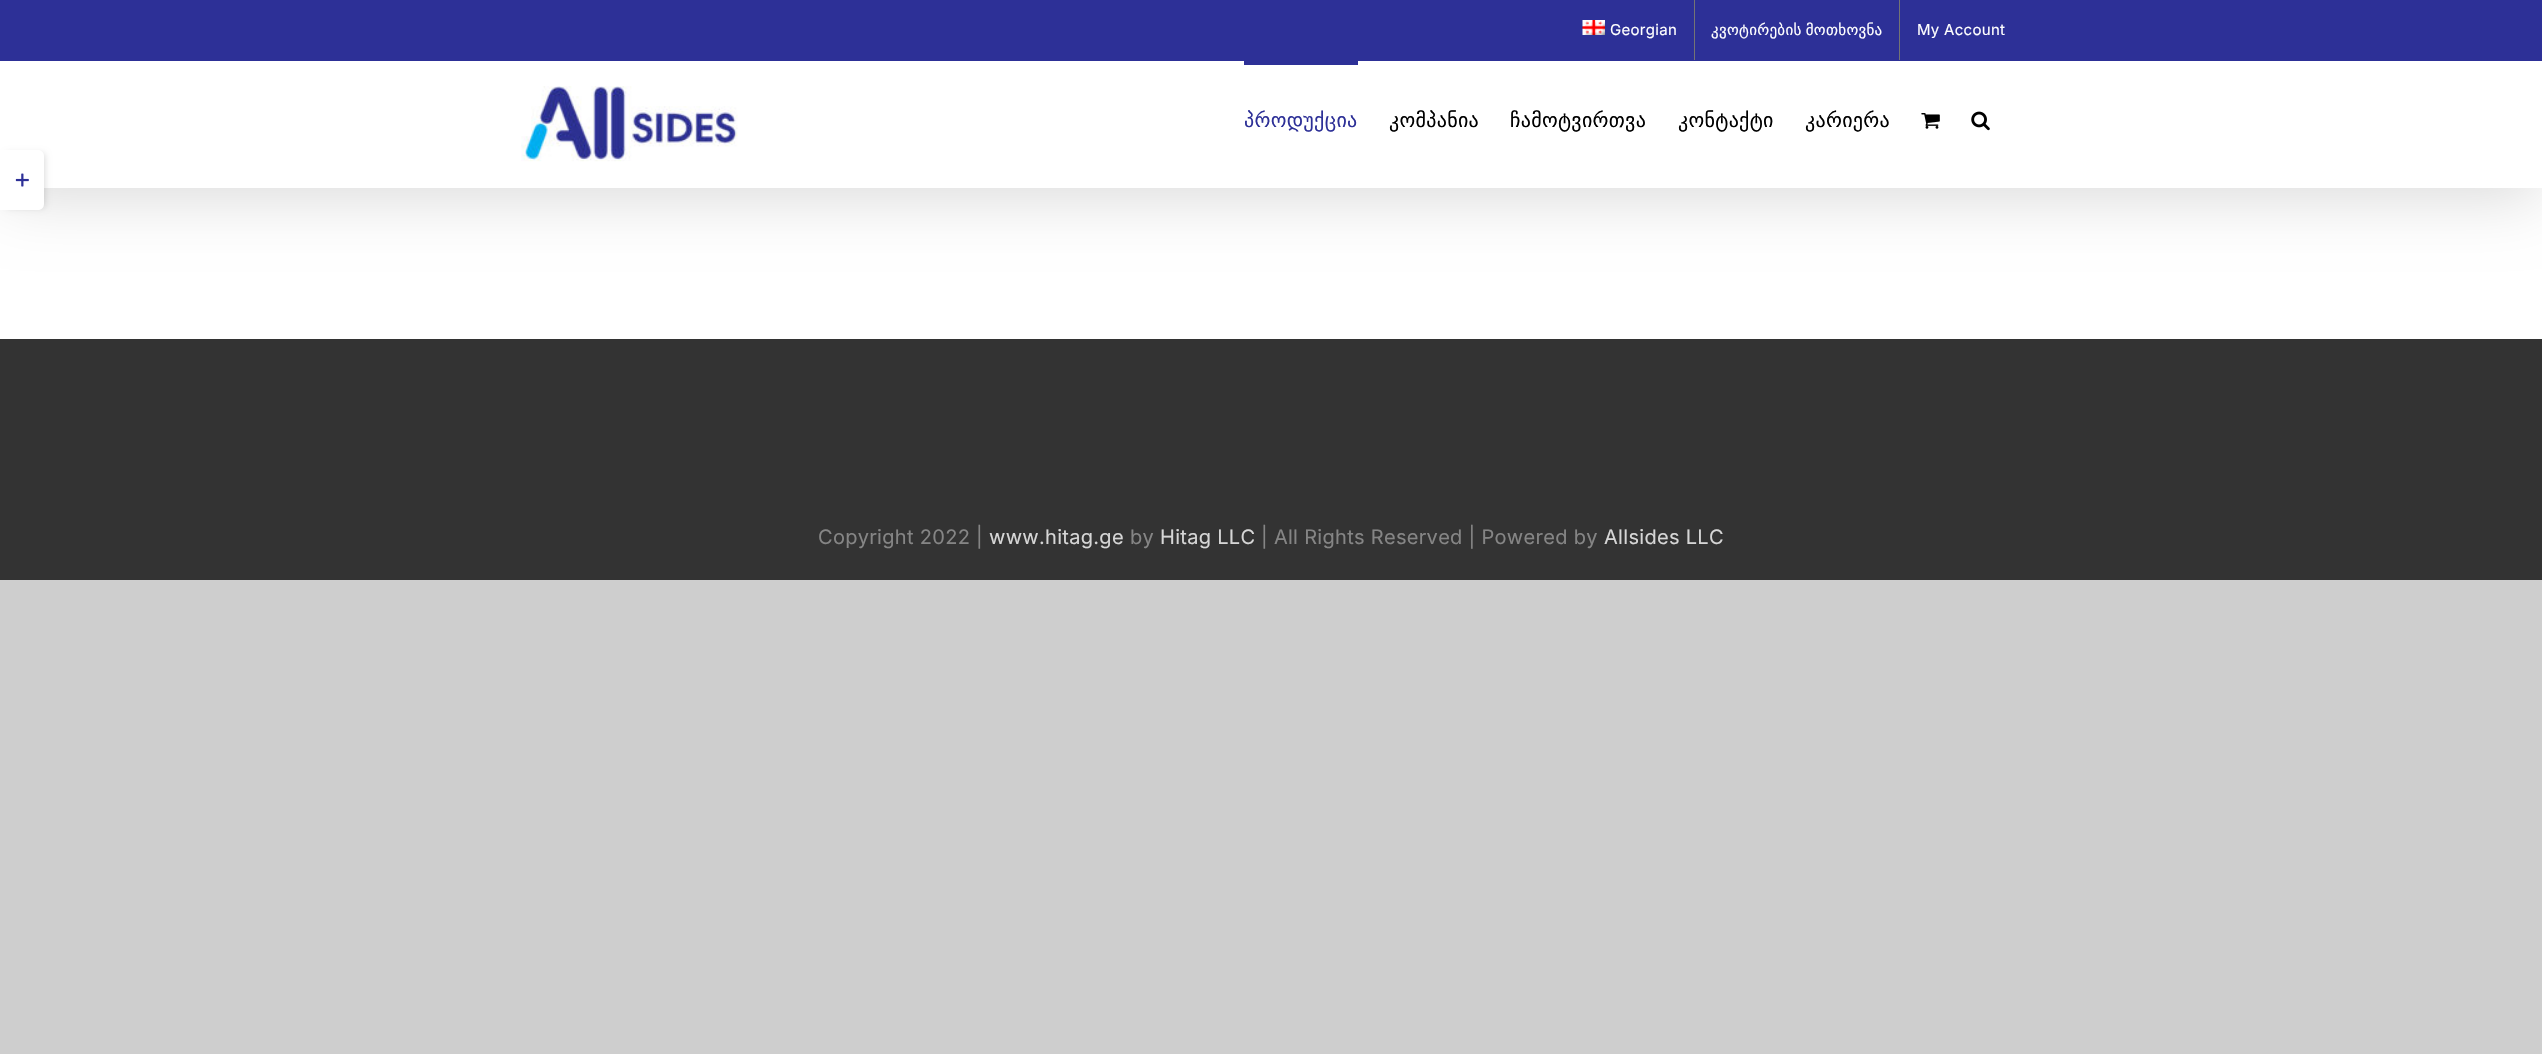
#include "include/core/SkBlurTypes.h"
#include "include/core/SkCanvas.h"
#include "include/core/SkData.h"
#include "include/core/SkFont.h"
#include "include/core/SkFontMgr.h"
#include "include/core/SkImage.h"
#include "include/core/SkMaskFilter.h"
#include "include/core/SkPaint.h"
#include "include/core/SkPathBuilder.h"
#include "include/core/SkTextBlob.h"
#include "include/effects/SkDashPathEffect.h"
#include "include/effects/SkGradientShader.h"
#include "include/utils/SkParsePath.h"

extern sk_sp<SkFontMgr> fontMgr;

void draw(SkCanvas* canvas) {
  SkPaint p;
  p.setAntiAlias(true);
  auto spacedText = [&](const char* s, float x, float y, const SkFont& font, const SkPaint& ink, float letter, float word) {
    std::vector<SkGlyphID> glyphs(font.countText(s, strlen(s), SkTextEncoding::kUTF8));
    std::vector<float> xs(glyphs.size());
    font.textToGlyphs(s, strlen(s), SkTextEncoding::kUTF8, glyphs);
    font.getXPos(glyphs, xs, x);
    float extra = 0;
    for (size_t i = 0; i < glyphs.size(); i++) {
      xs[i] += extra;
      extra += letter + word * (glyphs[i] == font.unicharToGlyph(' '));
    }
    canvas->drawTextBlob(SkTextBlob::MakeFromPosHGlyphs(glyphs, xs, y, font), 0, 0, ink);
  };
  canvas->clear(SkColorSetRGB(206, 206, 206));
  p.setColor(SK_ColorWHITE);
  canvas->drawRect(SkRect::MakeLTRB(0, 188, 2542, 339), p);
  p.setColor(SkColorSetARGB(36, 0, 0, 0));
  p.setMaskFilter(SkMaskFilter::MakeBlur(kNormal_SkBlurStyle, 31));
  canvas->drawRect(SkRect::MakeLTRB(3, 15, 2540, 198), p);
  p.setMaskFilter(nullptr);
  p.setColor(SkColorSetRGB(45, 48, 151));
  canvas->drawRect(SkRect::MakeLTRB(0, 0, 2542, 61), p);
  canvas->drawImageRect(SkImages::DeferredFromEncodedData(SkData::MakeFromFileName("images/1.png")), SkRect::MakeLTRB(1582, 20, 1605, 35), SkSamplingOptions());
  p.setColor(SkColorSetRGB(116, 116, 116));
  canvas->drawRect(SkRect::MakeLTRB(1694, 0, 1695, 60), p);
  canvas->drawRect(SkRect::MakeLTRB(1899, 0, 1900, 60), p);
  p.setColor(SK_ColorWHITE);
  canvas->drawRect(SkRect::MakeLTRB(0, 61, 2542, 188), p);
  canvas->drawImageRect(SkImages::DeferredFromEncodedData(SkData::MakeFromFileName("images/2.png")), SkRect::MakeLTRB(521, 86, 738, 162), SkSamplingOptions());
  p.setColor(SkColorSetRGB(45, 48, 151));
  canvas->drawRect(SkRect::MakeLTRB(1244, 61, 1358, 65), p);
  canvas->drawImageRect(SkImages::DeferredFromEncodedData(SkData::MakeFromFileName("images/3.png")), SkRect::MakeLTRB(1921, 113, 1940, 129), SkSamplingOptions());
  canvas->drawImageRect(SkImages::DeferredFromEncodedData(SkData::MakeFromFileName("images/4.png")), SkRect::MakeLTRB(1971, 111, 1990, 131), SkSamplingOptions());
  p.setColor(SkColorSetARGB(36, 0, 0, 0));
  p.setMaskFilter(SkMaskFilter::MakeBlur(kNormal_SkBlurStyle, 3));
  canvas->drawRoundRect(SkRect::MakeLTRB(6, 153, 45, 208), 4, 4, p);
  p.setMaskFilter(nullptr);
  p.setColor(SK_ColorWHITE);
  canvas->drawPath(SkPathBuilder().moveTo(0, 150).lineTo(38, 150).cubicTo(41.5f, 150, 44, 152.5f, 44, 156).lineTo(44, 204).cubicTo(44, 207.5f, 41.5f, 210, 38, 210).lineTo(0, 210).close().detach(), p);
  canvas->drawImageRect(SkImages::DeferredFromEncodedData(SkData::MakeFromFileName("images/5.png")), SkRect::MakeLTRB(15, 173, 29, 187), SkSamplingOptions());
  p.setColor(SkColorSetRGB(51, 51, 51));
  canvas->drawRect(SkRect::MakeLTRB(0, 339, 2542, 580), p);
  SkFont font1(fontMgr->matchFamilyStyle("Inter", SkFontStyle::Normal()), 15);
  font1.setSubpixel(true);
  p.setColor(SK_ColorWHITE);
  spacedText("Georgian", 1610, 35, font1, p, 0.3f, 0);
  SkFont font2(fontMgr->matchFamilyStyle("DejaVu Sans", SkFontStyle::Normal()), 15);
  font2.setSubpixel(true);
  spacedText("კვოტირების მოთხოვნა", 1711, 35, font2, p, 0.3f, -1);
  spacedText("My Account", 1917, 35, font1, p, 0.3f, 0);
  SkFont font3(fontMgr->matchFamilyStyle("DejaVu Sans", SkFontStyle::Normal()), 20);
  font3.setSubpixel(true);
  p.setColor(SkColorSetRGB(45, 48, 151));
  spacedText("პროდუქცია", 1244, 127, font3, p, 0.3f, 0);
  p.setColor(SK_ColorBLACK);
  spacedText("კომპანია", 1389, 127, font3, p, 0.3f, 0);
  spacedText("ჩამოტვირთვა", 1510, 127, font3, p, 0.3f, 0);
  spacedText("კონტაქტი", 1678, 127, font3, p, 0.3f, 0);
  spacedText("კარიერა", 1805, 127, font3, p, 0.3f, 0);
  SkFont font4(fontMgr->matchFamilyStyle("Inter", SkFontStyle::Normal()), 20);
  font4.setSubpixel(true);
  p.setColor(SkColorSetRGB(133, 133, 133));
  spacedText("Copyright 2022 |", 818, 544, font4, p, 0.3f, 0);
  p.setColor(SkColorSetRGB(214, 214, 214));
  spacedText("www.hitag.ge", 989, 544, font4, p, 0.3f, 0);
  p.setColor(SkColorSetRGB(133, 133, 133));
  spacedText("by", 1130, 544, font4, p, 0.3f, 0);
  p.setColor(SkColorSetRGB(214, 214, 214));
  spacedText("Hitag LLC", 1160, 544, font4, p, 0.3f, 0);
  p.setColor(SkColorSetRGB(133, 133, 133));
  spacedText("| All Rights Reserved | Powered by", 1261, 544, font4, p, 0.3f, 0);
  p.setColor(SkColorSetRGB(214, 214, 214));
  spacedText("Allsides LLC", 1604, 544, font4, p, 0.3f, 0);
}
